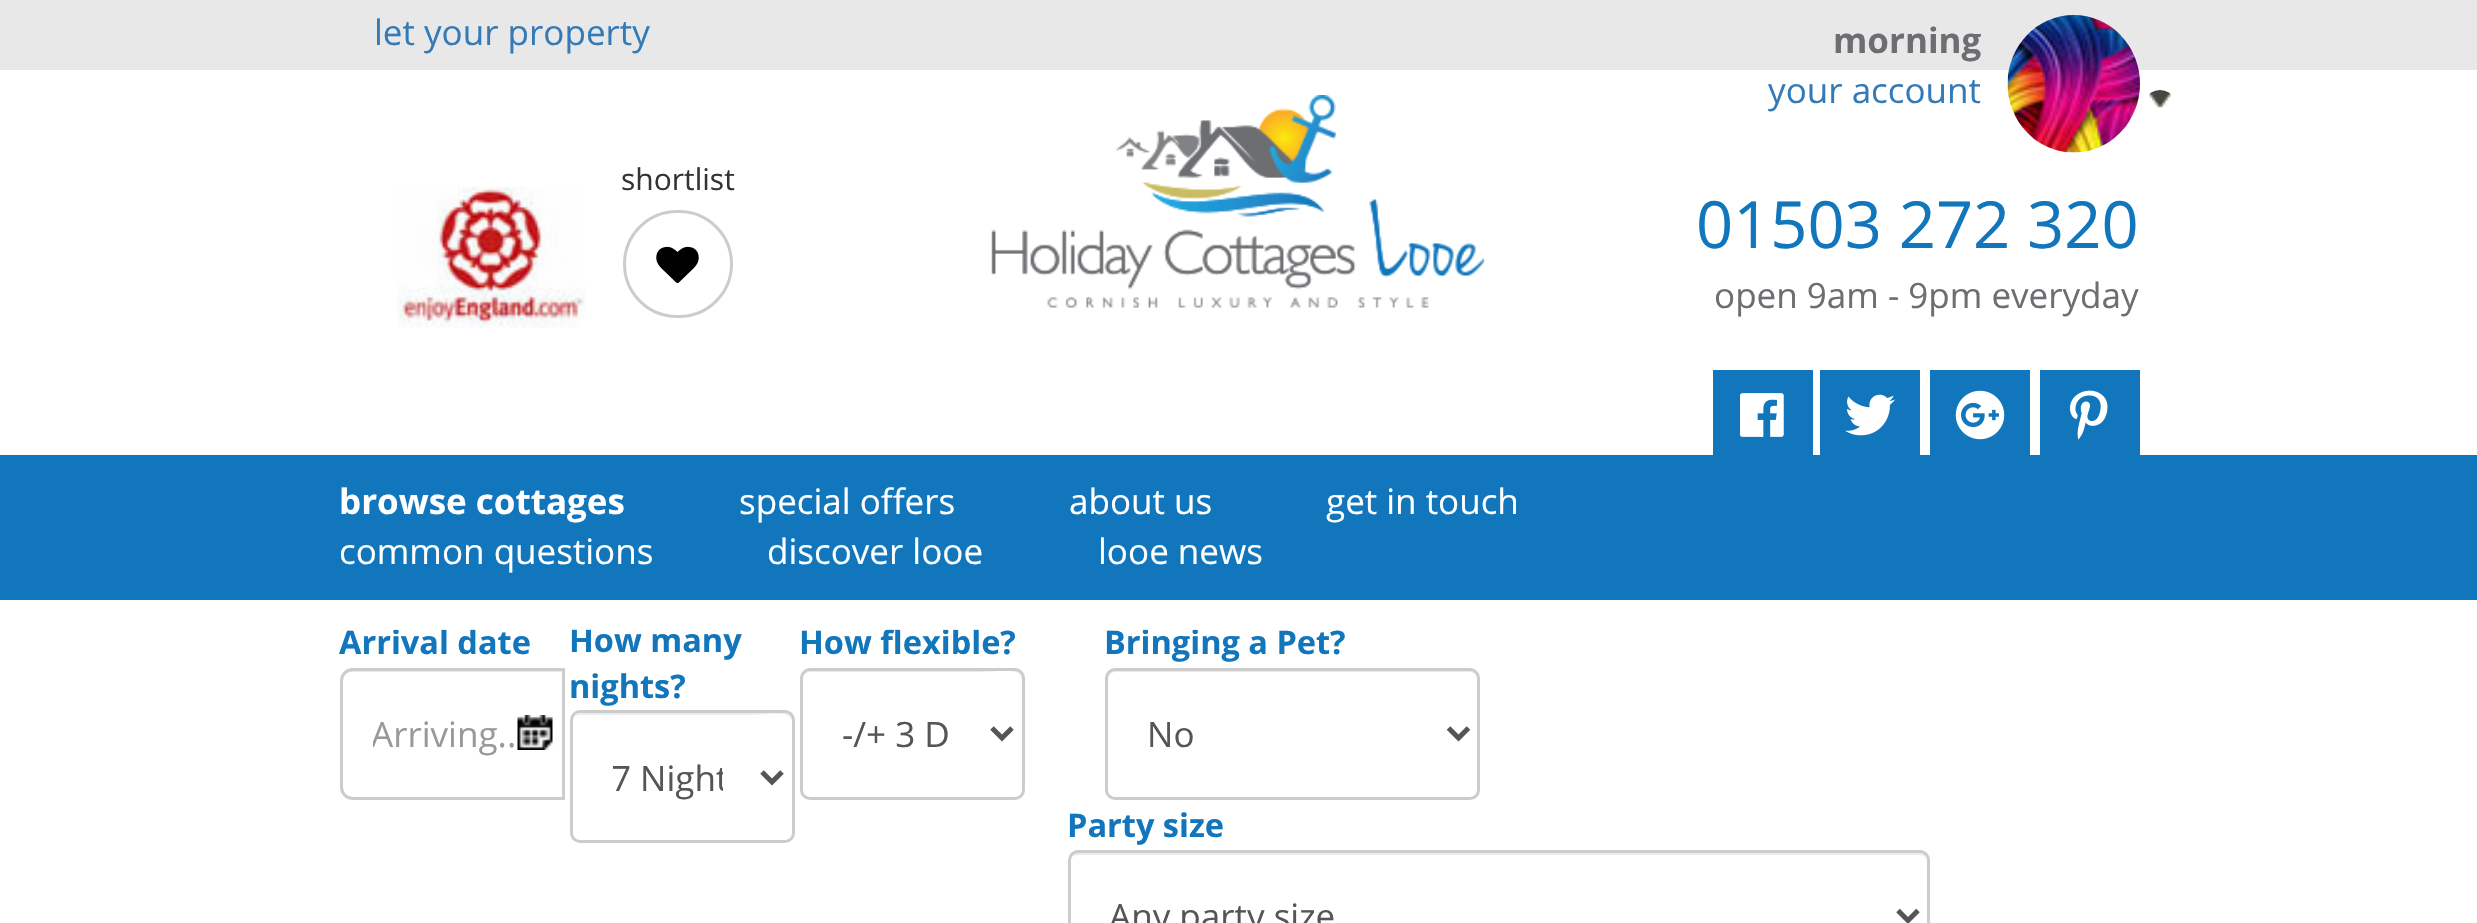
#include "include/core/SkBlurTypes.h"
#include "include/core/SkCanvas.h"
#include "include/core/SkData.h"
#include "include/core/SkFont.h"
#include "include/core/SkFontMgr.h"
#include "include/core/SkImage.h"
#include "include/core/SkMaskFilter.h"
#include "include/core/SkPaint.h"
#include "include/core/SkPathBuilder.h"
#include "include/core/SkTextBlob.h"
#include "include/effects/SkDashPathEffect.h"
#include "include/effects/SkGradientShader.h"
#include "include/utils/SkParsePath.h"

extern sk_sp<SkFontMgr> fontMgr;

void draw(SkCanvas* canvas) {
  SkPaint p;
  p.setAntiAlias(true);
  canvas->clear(SK_ColorWHITE);
  p.setColor(SkColorSetRGB(232, 232, 232));
  canvas->drawRect(SkRect::MakeLTRB(0, 0, 2477, 70), p);
  p.setStyle(SkPaint::kStroke_Style);
  p.setStrokeWidth(3);
  p.setColor(SkColorSetRGB(204, 204, 204));
  canvas->drawRoundRect(SkRect::MakeLTRB(624.5f, 211.5f, 731.5f, 316.5f), 52.5f, 52.5f, p);
  canvas->drawImageRect(SkImages::DeferredFromEncodedData(SkData::MakeFromFileName("images/1.png")), SkRect::MakeLTRB(656, 246, 699, 284), SkSamplingOptions());
  canvas->drawImageRect(SkImages::DeferredFromEncodedData(SkData::MakeFromFileName("images/2.png")), SkRect::MakeLTRB(397, 186, 585, 328), SkSamplingOptions());
  canvas->drawImageRect(SkImages::DeferredFromEncodedData(SkData::MakeFromFileName("images/3.png")), SkRect::MakeLTRB(991, 95, 1485, 308), SkSamplingOptions());
  canvas->drawImageRect(SkImages::DeferredFromEncodedData(SkData::MakeFromFileName("images/4.png")), SkRect::MakeLTRB(2007, 15, 2140, 153), SkSamplingOptions());
  canvas->drawImageRect(SkImages::DeferredFromEncodedData(SkData::MakeFromFileName("images/5.png")), SkRect::MakeLTRB(2148, 90, 2172, 108), SkSamplingOptions());
  p.setStyle(SkPaint::kFill_Style);
  p.setColor(SkColorSetRGB(17, 118, 188));
  canvas->drawRect(SkRect::MakeLTRB(1713, 370, 1813, 455), p);
  canvas->drawImageRect(SkImages::DeferredFromEncodedData(SkData::MakeFromFileName("images/6.png")), SkRect::MakeLTRB(1740, 393, 1784, 437), SkSamplingOptions());
  canvas->drawRect(SkRect::MakeLTRB(1820, 370, 1920, 455), p);
  canvas->drawImageRect(SkImages::DeferredFromEncodedData(SkData::MakeFromFileName("images/7.png")), SkRect::MakeLTRB(1845, 394, 1895, 436), SkSamplingOptions());
  canvas->drawRect(SkRect::MakeLTRB(1930, 370, 2030, 455), p);
  canvas->drawImageRect(SkImages::DeferredFromEncodedData(SkData::MakeFromFileName("images/8.png")), SkRect::MakeLTRB(1955, 390, 2005, 440), SkSamplingOptions());
  canvas->drawRect(SkRect::MakeLTRB(2040, 370, 2140, 455), p);
  canvas->drawImageRect(SkImages::DeferredFromEncodedData(SkData::MakeFromFileName("images/9.png")), SkRect::MakeLTRB(2070, 390, 2108, 440), SkSamplingOptions());
  canvas->drawRect(SkRect::MakeLTRB(0, 455, 2477, 600), p);
  canvas->drawImageRect(SkImages::DeferredFromEncodedData(SkData::MakeFromFileName("images/10.png")), SkRect::MakeLTRB(517, 715, 553, 750), SkSamplingOptions());
  p.setColor(SkColorSetRGB(236, 236, 236));
  canvas->drawPath(SkPathBuilder().moveTo(352, 672).lineTo(562, 672).lineTo(562, 798).lineTo(563, 798).lineTo(563, 670).lineTo(353, 670).cubicTo(348, 670, 344, 673, 343, 677).cubicTo(345, 674, 349, 672, 352, 672).close().detach(), p);
  p.setStyle(SkPaint::kStroke_Style);
  p.setColor(SkColorSetRGB(204, 204, 204));
  canvas->drawPath(SkPathBuilder().moveTo(353, 669.5f).lineTo(563.5f, 669.5f).lineTo(563.5f, 798.5f).lineTo(353, 798.5f).cubicTo(346.5f, 798.5f, 341.5f, 793.5f, 341.5f, 787).lineTo(341.5f, 681).cubicTo(341.5f, 674.5f, 346.5f, 669.5f, 353, 669.5f).close().detach(), p);
  p.setStyle(SkPaint::kFill_Style);
  p.setColor(SkColorSetRGB(236, 236, 236));
  canvas->drawPath(SkPathBuilder().moveTo(580, 715).lineTo(751, 715).cubicTo(765, 715, 792, 709, 792, 722).lineTo(792, 836).cubicTo(793, 835, 793, 833, 793, 832).lineTo(793, 721).cubicTo(793, 717, 789, 713, 785, 713).lineTo(581, 713).cubicTo(578, 713, 575, 715, 574, 718).cubicTo(575, 716, 578, 715, 580, 715).close().detach(), p);
  p.setStyle(SkPaint::kStroke_Style);
  p.setColor(SkColorSetRGB(204, 204, 204));
  canvas->drawRoundRect(SkRect::MakeLTRB(571.5f, 711.5f, 793.5f, 841.5f), 8.5f, 8.5f, p);
  p.setStrokeWidth(5);
  p.setColor(SkColorSetRGB(85, 85, 85));
  canvas->drawPath(SkPathBuilder().moveTo(762, 772).lineTo(772, 782).lineTo(782, 772).detach(), p);
  p.setStyle(SkPaint::kFill_Style);
  p.setColor(SkColorSetRGB(236, 236, 236));
  canvas->drawPath(SkPathBuilder().moveTo(810, 672).lineTo(981, 672).cubicTo(996, 672, 1022, 666, 1022, 680).lineTo(1022, 794).cubicTo(1023, 793, 1023, 792, 1023, 790).lineTo(1023, 678).cubicTo(1023, 674, 1019, 670, 1015, 670).lineTo(811, 670).cubicTo(807, 670, 804, 673, 803, 676).cubicTo(805, 674, 807, 672, 810, 672).close().detach(), p);
  p.setStyle(SkPaint::kStroke_Style);
  p.setStrokeWidth(3);
  p.setColor(SkColorSetRGB(204, 204, 204));
  canvas->drawRoundRect(SkRect::MakeLTRB(801.5f, 669.5f, 1023.5f, 798.5f), 8.5f, 8.5f, p);
  p.setStrokeWidth(5);
  p.setColor(SkColorSetRGB(85, 85, 85));
  canvas->drawPath(SkPathBuilder().moveTo(992, 728).lineTo(1002, 738).lineTo(1012, 728).detach(), p);
  p.setStyle(SkPaint::kFill_Style);
  p.setColor(SkColorSetRGB(236, 236, 236));
  canvas->drawPath(SkPathBuilder().moveTo(1115, 672).lineTo(1470, 672).cubicTo(1474, 672, 1478, 676, 1478, 680).cubicTo(1478, 675, 1476, 670, 1470, 670).lineTo(1114, 670).cubicTo(1109, 671, 1108, 676, 1108, 680).cubicTo(1108, 676, 1111, 672, 1115, 672).close().detach(), p);
  p.setStyle(SkPaint::kStroke_Style);
  p.setStrokeWidth(3);
  p.setColor(SkColorSetRGB(204, 204, 204));
  canvas->drawRoundRect(SkRect::MakeLTRB(1106.5f, 669.5f, 1478.5f, 798.5f), 8.5f, 8.5f, p);
  p.setStrokeWidth(5);
  p.setColor(SkColorSetRGB(85, 85, 85));
  canvas->drawPath(SkPathBuilder().moveTo(1448.5f, 728).lineTo(1458.5f, 738).lineTo(1468.5f, 728).detach(), p);
  p.setStyle(SkPaint::kFill_Style);
  p.setColor(SkColorSetRGB(236, 236, 236));
  canvas->drawPath(SkPathBuilder().moveTo(1078, 855).lineTo(1920, 855).cubicTo(1924, 855, 1928, 858, 1928, 862).cubicTo(1928, 857, 1925, 853, 1920, 853).lineTo(1078, 853).cubicTo(1073, 853, 1070, 857, 1070, 862).cubicTo(1070, 858, 1073, 855, 1078, 855).close().detach(), p);
  p.setStyle(SkPaint::kStroke_Style);
  p.setStrokeWidth(3);
  p.setColor(SkColorSetRGB(204, 204, 204));
  canvas->drawRoundRect(SkRect::MakeLTRB(1069.5f, 851.5f, 1928.5f, 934.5f), 8.5f, 8.5f, p);
  p.setStrokeWidth(5);
  p.setColor(SkColorSetRGB(85, 85, 85));
  canvas->drawPath(SkPathBuilder().moveTo(1898, 910.5f).lineTo(1908, 920.5f).lineTo(1918, 910.5f).detach(), p);
  SkFont font1(fontMgr->matchFamilyStyle("Open Sans", SkFontStyle::Normal()), 35);
  font1.setSubpixel(true);
  p.setStyle(SkPaint::kFill_Style);
  p.setColor(SkColorSetRGB(51, 122, 183));
  canvas->drawString("let your property", 374, 45, font1, p);
  SkFont font2(fontMgr->matchFamilyStyle("Open Sans", SkFontStyle::Normal()), 30);
  font2.setSubpixel(true);
  p.setColor(SkColorSetRGB(51, 51, 51));
  canvas->drawString("shortlist", 621, 190, font2, p);
  SkFont font3(fontMgr->matchFamilyStyle("Open Sans", SkFontStyle::Bold()), 35);
  font3.setSubpixel(true);
  p.setColor(SkColorSetRGB(109, 110, 113));
  canvas->drawString("morning", 1833, 53, font3, p);
  p.setColor(SkColorSetRGB(51, 122, 183));
  canvas->drawString("your account", 1768, 103, font1, p);
  SkFont font4(fontMgr->matchFamilyStyle("Open Sans", SkFontStyle::Normal()), 65);
  font4.setSubpixel(true);
  p.setColor(SkColorSetRGB(17, 118, 188));
  canvas->drawString("01503 272 320", 1696, 248, font4, p);
  p.setColor(SkColorSetRGB(109, 110, 113));
  canvas->drawString("open 9am - 9pm everyday", 1714, 308, font1, p);
  p.setColor(SK_ColorWHITE);
  canvas->drawString("browse cottages", 339, 514, font3, p);
  canvas->drawString("special offers", 739, 514, font1, p);
  canvas->drawString("about us", 1069, 514, font1, p);
  canvas->drawString("get in touch", 1326, 514, font1, p);
  canvas->drawString("common questions", 339, 564, font1, p);
  canvas->drawString("discover looe", 767, 564, font1, p);
  canvas->drawString("looe news", 1098, 564, font1, p);
  SkFont font5(fontMgr->matchFamilyStyle("Open Sans", SkFontStyle::Bold()), 32.5f);
  font5.setSubpixel(true);
  p.setColor(SkColorSetRGB(17, 118, 188));
  canvas->drawString("Arrival date", 339, 654, font5, p);
  canvas->save();
  canvas->clipRect(SkRect::MakeLTRB(373, 710, 533, 758));
  p.setColor(SkColorSetRGB(153, 153, 153));
  canvas->drawString("Arriving..", 371, 747, font1, p);
  canvas->restore();
  p.setColor(SkColorSetRGB(17, 118, 188));
  canvas->drawString("How many", 569, 652, font5, p);
  canvas->drawString("nights?", 569, 698, font5, p);
  canvas->save();
  canvas->clipRect(SkRect::MakeLTRB(613, 750, 723, 803));
  p.setColor(SkColorSetRGB(85, 85, 85));
  canvas->drawString("7 Night", 611, 791, font1, p);
  canvas->restore();
  p.setColor(SkColorSetRGB(17, 118, 188));
  canvas->drawString("How flexible?", 799, 654, font5, p);
  p.setColor(SkColorSetRGB(85, 85, 85));
  canvas->drawString("-/+ 3 D", 842, 747, font1, p);
  p.setColor(SkColorSetRGB(17, 118, 188));
  canvas->drawString("Bringing a Pet?", 1104, 654, font5, p);
  p.setColor(SkColorSetRGB(85, 85, 85));
  canvas->drawString("No", 1147, 747, font1, p);
  p.setColor(SkColorSetRGB(17, 118, 188));
  canvas->drawString("Party size", 1067, 837, font5, p);
  p.setColor(SkColorSetRGB(85, 85, 85));
  canvas->drawString("Any party size", 1109, 929, font1, p);
  p.setColor(SkColorSetARGB(204, 255, 255, 255));
  canvas->drawRect(SkRect::MakeLTRB(393, 628, 1198, 630), p);
}
